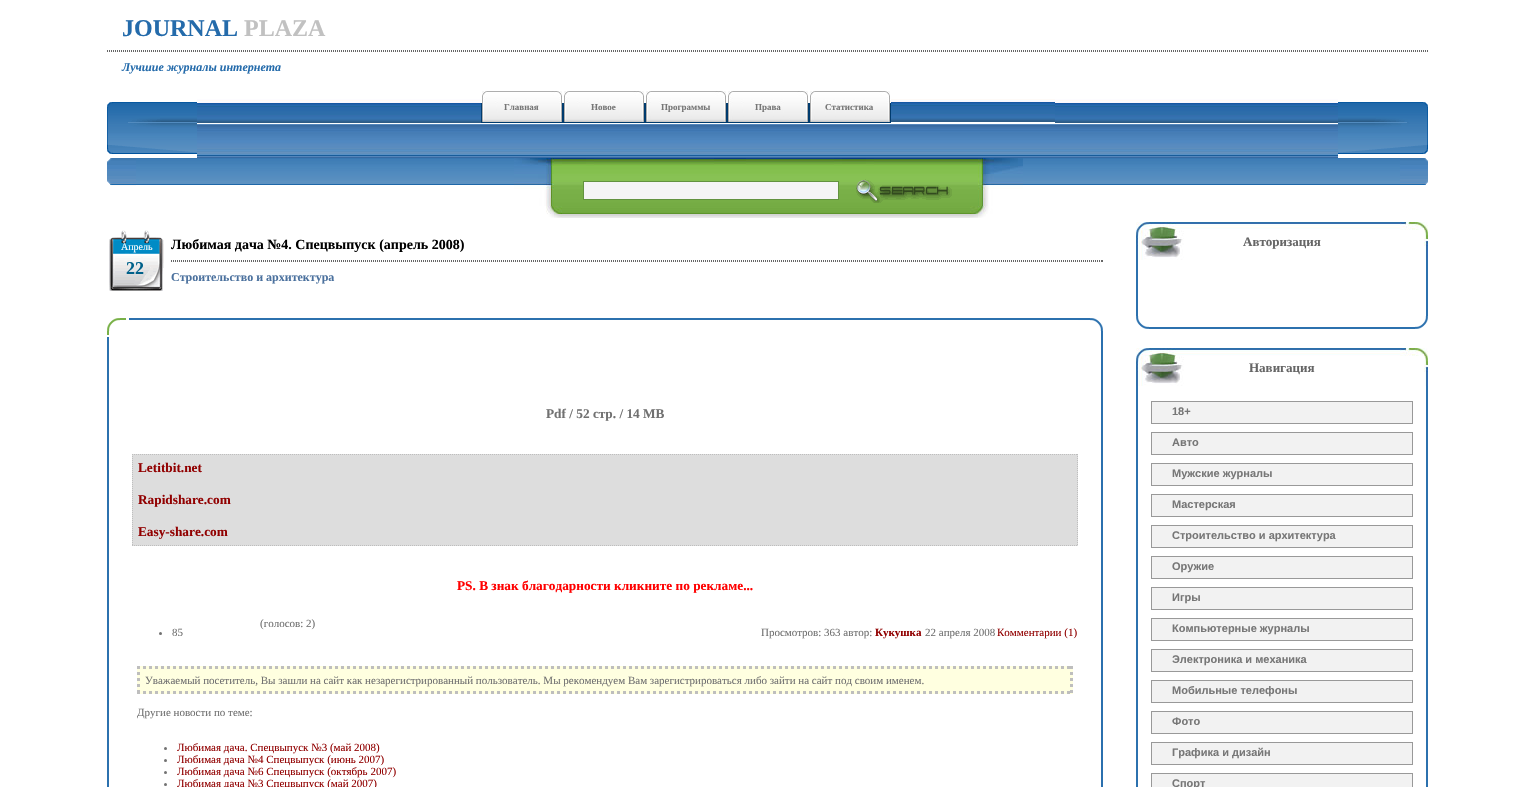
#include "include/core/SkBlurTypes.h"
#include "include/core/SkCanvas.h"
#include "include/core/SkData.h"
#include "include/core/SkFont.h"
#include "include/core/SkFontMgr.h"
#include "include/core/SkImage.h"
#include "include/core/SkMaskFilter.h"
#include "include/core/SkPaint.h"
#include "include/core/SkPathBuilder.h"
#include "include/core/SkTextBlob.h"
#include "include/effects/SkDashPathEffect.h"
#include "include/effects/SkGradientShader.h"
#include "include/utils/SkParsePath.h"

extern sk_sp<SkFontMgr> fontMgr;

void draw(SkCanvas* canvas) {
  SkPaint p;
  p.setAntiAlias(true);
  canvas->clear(SK_ColorWHITE);
  p.setStyle(SkPaint::kStroke_Style);
  p.setStrokeWidth(1);
  p.setColor(SkColorSetRGB(102, 102, 102));
  p.setPathEffect(SkDashPathEffect::Make({{1, 1}}, 0));
  canvas->drawPath(SkPathBuilder().moveTo(107, 50.5f).lineTo(1428, 50.5f).detach(), p);
  p.setPathEffect(nullptr);
  p.setStyle(SkPaint::kFill_Style);
  canvas->drawRect(SkRect::MakeLTRB(1427, 50, 1428, 52), p);
  p.setStyle(SkPaint::kStroke_Style);
  p.setPathEffect(SkDashPathEffect::Make({{1, 1}}, 0));
  canvas->drawPath(SkPathBuilder().moveTo(107, 51.5f).lineTo(1428, 51.5f).detach(), p);
  p.setPathEffect(nullptr);
  canvas->drawImageRect(SkImages::DeferredFromEncodedData(SkData::MakeFromFileName("images/1.png")), SkRect::MakeLTRB(107, 102, 197, 154), SkSamplingOptions());
  canvas->drawImageRect(SkImages::DeferredFromEncodedData(SkData::MakeFromFileName("images/2.png")), SkRect::MakeLTRB(891, 99, 1055, 122), SkSamplingOptions());
  canvas->drawImageRect(SkImages::DeferredFromEncodedData(SkData::MakeFromFileName("images/3.png")), SkRect::MakeLTRB(197, 99, 317, 123), SkSamplingOptions());
  canvas->drawImageRect(SkImages::DeferredFromEncodedData(SkData::MakeFromFileName("images/4.png")), SkRect::MakeLTRB(317, 99, 399, 123), SkSamplingOptions());
  canvas->drawImageRect(SkImages::DeferredFromEncodedData(SkData::MakeFromFileName("images/4.png")), SkRect::MakeLTRB(399, 99, 481, 123), SkSamplingOptions());
  canvas->drawImageRect(SkImages::DeferredFromEncodedData(SkData::MakeFromFileName("images/5.png")), SkRect::MakeLTRB(481, 91, 563, 123), SkSamplingOptions());
  canvas->drawImageRect(SkImages::DeferredFromEncodedData(SkData::MakeFromFileName("images/5.png")), SkRect::MakeLTRB(563, 91, 645, 123), SkSamplingOptions());
  canvas->drawImageRect(SkImages::DeferredFromEncodedData(SkData::MakeFromFileName("images/5.png")), SkRect::MakeLTRB(645, 91, 727, 123), SkSamplingOptions());
  canvas->drawImageRect(SkImages::DeferredFromEncodedData(SkData::MakeFromFileName("images/5.png")), SkRect::MakeLTRB(727, 91, 809, 123), SkSamplingOptions());
  canvas->drawImageRect(SkImages::DeferredFromEncodedData(SkData::MakeFromFileName("images/5.png")), SkRect::MakeLTRB(809, 91, 891, 123), SkSamplingOptions());
  canvas->drawImageRect(SkImages::DeferredFromEncodedData(SkData::MakeFromFileName("images/4.png")), SkRect::MakeLTRB(1055, 99, 1137, 123), SkSamplingOptions());
  canvas->drawImageRect(SkImages::DeferredFromEncodedData(SkData::MakeFromFileName("images/4.png")), SkRect::MakeLTRB(1137, 99, 1219, 123), SkSamplingOptions());
  canvas->drawImageRect(SkImages::DeferredFromEncodedData(SkData::MakeFromFileName("images/6.png")), SkRect::MakeLTRB(1219, 99, 1338, 123), SkSamplingOptions());
  canvas->drawImageRect(SkImages::DeferredFromEncodedData(SkData::MakeFromFileName("images/7.png")), SkRect::MakeLTRB(1338, 102, 1428, 154), SkSamplingOptions());
  canvas->drawImageRect(SkImages::DeferredFromEncodedData(SkData::MakeFromFileName("images/8.png")), SkRect::MakeLTRB(197, 124, 1338, 158), SkSamplingOptions());
  canvas->drawImageRect(SkImages::DeferredFromEncodedData(SkData::MakeFromFileName("images/9.png")), SkRect::MakeLTRB(107, 158, 136, 186), SkSamplingOptions());
  canvas->drawImageRect(SkImages::DeferredFromEncodedData(SkData::MakeFromFileName("images/10.png")), SkRect::MakeLTRB(136, 158, 514, 185), SkSamplingOptions());
  canvas->drawImageRect(SkImages::DeferredFromEncodedData(SkData::MakeFromFileName("images/11.png")), SkRect::MakeLTRB(514, 158, 1023, 218), SkSamplingOptions());
  p.setStyle(SkPaint::kFill_Style);
  p.setColor(SkColorSetRGB(245, 245, 245));
  canvas->drawRect(SkRect::MakeLTRB(583.5f, 181.5f, 838.5f, 199.5f), p);
  p.setStyle(SkPaint::kStroke_Style);
  p.setColor(SkColorSetRGB(99, 147, 63));
  canvas->drawRect(SkRect::MakeLTRB(583.5f, 181.5f, 838.5f, 199.5f), p);
  canvas->drawImageRect(SkImages::DeferredFromEncodedData(SkData::MakeFromFileName("images/12.png")), SkRect::MakeLTRB(856, 179, 952, 203), SkSamplingOptions());
  canvas->drawImageRect(SkImages::DeferredFromEncodedData(SkData::MakeFromFileName("images/13.png")), SkRect::MakeLTRB(1023, 158, 1400, 185), SkSamplingOptions());
  canvas->drawImageRect(SkImages::DeferredFromEncodedData(SkData::MakeFromFileName("images/14.png")), SkRect::MakeLTRB(1400, 158, 1428, 185), SkSamplingOptions());
  canvas->drawImageRect(SkImages::DeferredFromEncodedData(SkData::MakeFromFileName("images/15.png")), SkRect::MakeLTRB(109, 230, 164, 291), SkSamplingOptions());
  p.setColor(SkColorSetRGB(102, 102, 102));
  p.setPathEffect(SkDashPathEffect::Make({{1, 1}}, 0));
  canvas->drawPath(SkPathBuilder().moveTo(171, 260.5f).lineTo(1103, 260.5f).detach(), p);
  p.setPathEffect(nullptr);
  p.setStyle(SkPaint::kFill_Style);
  canvas->drawRect(SkRect::MakeLTRB(1102, 260, 1103, 262), p);
  p.setStyle(SkPaint::kStroke_Style);
  p.setPathEffect(SkDashPathEffect::Make({{1, 1}}, 0));
  canvas->drawPath(SkPathBuilder().moveTo(171, 261.5f).lineTo(1103, 261.5f).detach(), p);
  p.setPathEffect(nullptr);
  canvas->drawImageRect(SkImages::DeferredFromEncodedData(SkData::MakeFromFileName("images/16.png")), SkRect::MakeLTRB(107, 318, 132, 335), SkSamplingOptions());
  p.setStyle(SkPaint::kFill_Style);
  p.setColor(SkColorSetRGB(44, 113, 174));
  canvas->drawRect(SkRect::MakeLTRB(132, 318, 1078, 320), p);
  canvas->drawImageRect(SkImages::DeferredFromEncodedData(SkData::MakeFromFileName("images/17.png")), SkRect::MakeLTRB(1078, 318, 1103, 337), SkSamplingOptions());
  canvas->drawRect(SkRect::MakeLTRB(107, 337, 109, 787), p);
  p.setColor(SkColorSetRGB(221, 221, 221));
  canvas->drawRect(SkRect::MakeLTRB(132, 454, 1078, 546), p);
  p.setStyle(SkPaint::kStroke_Style);
  p.setColor(SkColorSetRGB(190, 190, 190));
  p.setPathEffect(SkDashPathEffect::Make({{1, 1}}, 0));
  canvas->drawPath(SkPathBuilder().moveTo(132, 454.5f).lineTo(1078, 454.5f).detach(), p);
  p.setPathEffect(nullptr);
  p.setPathEffect(SkDashPathEffect::Make({{1, 1}}, 0));
  canvas->drawPath(SkPathBuilder().moveTo(1077.5f, 454).lineTo(1077.5f, 546).detach(), p);
  p.setPathEffect(nullptr);
  p.setPathEffect(SkDashPathEffect::Make({{1, 1}}, 0));
  canvas->drawPath(SkPathBuilder().moveTo(132, 545.5f).lineTo(1078, 545.5f).detach(), p);
  p.setPathEffect(nullptr);
  p.setPathEffect(SkDashPathEffect::Make({{1, 1}}, 0));
  canvas->drawPath(SkPathBuilder().moveTo(132.5f, 454).lineTo(132.5f, 546).detach(), p);
  p.setPathEffect(nullptr);
  p.setStyle(SkPaint::kFill_Style);
  p.setColor(SkColorSetRGB(43, 112, 174));
  canvas->drawRect(SkRect::MakeLTRB(1101, 337, 1103, 787), p);
  p.setColor(SkColorSetRGB(113, 113, 113));
  canvas->drawCircle(160.5f, 633.5f, 1.5f, p);
  p.setColor(SkColorSetRGB(255, 255, 224));
  canvas->drawRect(SkRect::MakeLTRB(137, 666, 1073, 694), p);
  p.setStyle(SkPaint::kStroke_Style);
  p.setStrokeWidth(3);
  p.setColor(SkColorSetRGB(190, 190, 190));
  p.setPathEffect(SkDashPathEffect::Make({{3, 3}}, 0));
  canvas->drawPath(SkPathBuilder().moveTo(137, 667.5f).lineTo(1073, 667.5f).detach(), p);
  p.setPathEffect(nullptr);
  p.setPathEffect(SkDashPathEffect::Make({{3, 3}}, 0));
  canvas->drawPath(SkPathBuilder().moveTo(1071.5f, 666).lineTo(1071.5f, 694).detach(), p);
  p.setPathEffect(nullptr);
  p.setPathEffect(SkDashPathEffect::Make({{3, 3}}, 0));
  canvas->drawPath(SkPathBuilder().moveTo(137, 692.5f).lineTo(1073, 692.5f).detach(), p);
  p.setPathEffect(nullptr);
  p.setPathEffect(SkDashPathEffect::Make({{3, 3}}, 0));
  canvas->drawPath(SkPathBuilder().moveTo(138.5f, 666).lineTo(138.5f, 694).detach(), p);
  p.setPathEffect(nullptr);
  p.setStyle(SkPaint::kFill_Style);
  p.setColor(SkColorSetRGB(114, 114, 114));
  canvas->drawCircle(165.5f, 748.5f, 1.5f, p);
  canvas->drawCircle(165.5f, 760.5f, 1.5f, p);
  canvas->drawCircle(165.5f, 772.5f, 1.5f, p);
  canvas->drawCircle(165.5f, 784.5f, 1.5f, p);
  canvas->drawImageRect(SkImages::DeferredFromEncodedData(SkData::MakeFromFileName("images/18.png")), SkRect::MakeLTRB(1136, 222, 1428, 260), SkSamplingOptions());
  canvas->drawImageRect(SkImages::DeferredFromEncodedData(SkData::MakeFromFileName("images/19.png")), SkRect::MakeLTRB(1136, 260, 1428, 308), SkSamplingOptions());
  canvas->drawImageRect(SkImages::DeferredFromEncodedData(SkData::MakeFromFileName("images/20.png")), SkRect::MakeLTRB(1136, 308, 1428, 329), SkSamplingOptions());
  canvas->drawImageRect(SkImages::DeferredFromEncodedData(SkData::MakeFromFileName("images/18.png")), SkRect::MakeLTRB(1136, 348, 1428, 386), SkSamplingOptions());
  canvas->drawImageRect(SkImages::DeferredFromEncodedData(SkData::MakeFromFileName("images/21.png")), SkRect::MakeLTRB(1136, 386, 1428, 787), SkSamplingOptions());
  p.setColor(SkColorSetRGB(242, 242, 242));
  canvas->drawRect(SkRect::MakeLTRB(1151.5f, 401.5f, 1412.5f, 423.5f), p);
  p.setStyle(SkPaint::kStroke_Style);
  p.setStrokeWidth(1);
  p.setColor(SkColorSetRGB(153, 153, 153));
  canvas->drawRect(SkRect::MakeLTRB(1151.5f, 401.5f, 1412.5f, 423.5f), p);
  p.setStyle(SkPaint::kFill_Style);
  p.setColor(SkColorSetRGB(242, 242, 242));
  canvas->drawRect(SkRect::MakeLTRB(1151.5f, 432.5f, 1412.5f, 454.5f), p);
  p.setStyle(SkPaint::kStroke_Style);
  p.setColor(SkColorSetRGB(153, 153, 153));
  canvas->drawRect(SkRect::MakeLTRB(1151.5f, 432.5f, 1412.5f, 454.5f), p);
  p.setStyle(SkPaint::kFill_Style);
  p.setColor(SkColorSetRGB(242, 242, 242));
  canvas->drawRect(SkRect::MakeLTRB(1151.5f, 463.5f, 1412.5f, 485.5f), p);
  p.setStyle(SkPaint::kStroke_Style);
  p.setColor(SkColorSetRGB(153, 153, 153));
  canvas->drawRect(SkRect::MakeLTRB(1151.5f, 463.5f, 1412.5f, 485.5f), p);
  p.setStyle(SkPaint::kFill_Style);
  p.setColor(SkColorSetRGB(242, 242, 242));
  canvas->drawRect(SkRect::MakeLTRB(1151.5f, 494.5f, 1412.5f, 516.5f), p);
  p.setStyle(SkPaint::kStroke_Style);
  p.setColor(SkColorSetRGB(153, 153, 153));
  canvas->drawRect(SkRect::MakeLTRB(1151.5f, 494.5f, 1412.5f, 516.5f), p);
  p.setStyle(SkPaint::kFill_Style);
  p.setColor(SkColorSetRGB(242, 242, 242));
  canvas->drawRect(SkRect::MakeLTRB(1151.5f, 525.5f, 1412.5f, 547.5f), p);
  p.setStyle(SkPaint::kStroke_Style);
  p.setColor(SkColorSetRGB(153, 153, 153));
  canvas->drawRect(SkRect::MakeLTRB(1151.5f, 525.5f, 1412.5f, 547.5f), p);
  p.setStyle(SkPaint::kFill_Style);
  p.setColor(SkColorSetRGB(242, 242, 242));
  canvas->drawRect(SkRect::MakeLTRB(1151.5f, 556.5f, 1412.5f, 578.5f), p);
  p.setStyle(SkPaint::kStroke_Style);
  p.setColor(SkColorSetRGB(153, 153, 153));
  canvas->drawRect(SkRect::MakeLTRB(1151.5f, 556.5f, 1412.5f, 578.5f), p);
  p.setStyle(SkPaint::kFill_Style);
  p.setColor(SkColorSetRGB(242, 242, 242));
  canvas->drawRect(SkRect::MakeLTRB(1151.5f, 587.5f, 1412.5f, 609.5f), p);
  p.setStyle(SkPaint::kStroke_Style);
  p.setColor(SkColorSetRGB(153, 153, 153));
  canvas->drawRect(SkRect::MakeLTRB(1151.5f, 587.5f, 1412.5f, 609.5f), p);
  p.setStyle(SkPaint::kFill_Style);
  p.setColor(SkColorSetRGB(242, 242, 242));
  canvas->drawRect(SkRect::MakeLTRB(1151.5f, 618.5f, 1412.5f, 640.5f), p);
  p.setStyle(SkPaint::kStroke_Style);
  p.setColor(SkColorSetRGB(153, 153, 153));
  canvas->drawRect(SkRect::MakeLTRB(1151.5f, 618.5f, 1412.5f, 640.5f), p);
  p.setStyle(SkPaint::kFill_Style);
  p.setColor(SkColorSetRGB(242, 242, 242));
  canvas->drawRect(SkRect::MakeLTRB(1151.5f, 649.5f, 1412.5f, 671.5f), p);
  p.setStyle(SkPaint::kStroke_Style);
  p.setColor(SkColorSetRGB(153, 153, 153));
  canvas->drawRect(SkRect::MakeLTRB(1151.5f, 649.5f, 1412.5f, 671.5f), p);
  p.setStyle(SkPaint::kFill_Style);
  p.setColor(SkColorSetRGB(242, 242, 242));
  canvas->drawRect(SkRect::MakeLTRB(1151.5f, 680.5f, 1412.5f, 702.5f), p);
  p.setStyle(SkPaint::kStroke_Style);
  p.setColor(SkColorSetRGB(153, 153, 153));
  canvas->drawRect(SkRect::MakeLTRB(1151.5f, 680.5f, 1412.5f, 702.5f), p);
  p.setStyle(SkPaint::kFill_Style);
  p.setColor(SkColorSetRGB(242, 242, 242));
  canvas->drawRect(SkRect::MakeLTRB(1151.5f, 711.5f, 1412.5f, 733.5f), p);
  p.setStyle(SkPaint::kStroke_Style);
  p.setColor(SkColorSetRGB(153, 153, 153));
  canvas->drawRect(SkRect::MakeLTRB(1151.5f, 711.5f, 1412.5f, 733.5f), p);
  p.setStyle(SkPaint::kFill_Style);
  p.setColor(SkColorSetRGB(242, 242, 242));
  canvas->drawRect(SkRect::MakeLTRB(1151.5f, 742.5f, 1412.5f, 764.5f), p);
  p.setStyle(SkPaint::kStroke_Style);
  p.setColor(SkColorSetRGB(153, 153, 153));
  canvas->drawRect(SkRect::MakeLTRB(1151.5f, 742.5f, 1412.5f, 764.5f), p);
  p.setStyle(SkPaint::kFill_Style);
  p.setColor(SkColorSetRGB(242, 242, 242));
  canvas->drawRect(SkRect::MakeLTRB(1151.5f, 773.5f, 1412.5f, 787.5f), p);
  p.setStyle(SkPaint::kStroke_Style);
  p.setColor(SkColorSetRGB(153, 153, 153));
  canvas->drawRect(SkRect::MakeLTRB(1151.5f, 773.5f, 1412.5f, 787.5f), p);
  SkFont font1(fontMgr->matchFamilyStyle("Liberation Serif", SkFontStyle::Bold()), 24);
  font1.setSubpixel(true);
  p.setStyle(SkPaint::kFill_Style);
  p.setColor(SkColorSetRGB(36, 107, 171));
  canvas->drawString("JOURNAL", 122, 36, font1, p);
  p.setColor(SkColorSetRGB(193, 193, 193));
  canvas->drawString("PLAZA", 244, 36, font1, p);
  SkFont font2(fontMgr->matchFamilyStyle("Liberation Serif", SkFontStyle::BoldItalic()), 12);
  font2.setSubpixel(true);
  p.setColor(SkColorSetRGB(36, 107, 171));
  canvas->drawString("Лучшие журналы интернета", 122, 71, font2, p);
  SkFont font3(fontMgr->matchFamilyStyle("Liberation Serif", SkFontStyle::Bold()), 9);
  font3.setSubpixel(true);
  p.setColor(SkColorSetRGB(119, 119, 119));
  canvas->drawString("Главная", 504, 110, font3, p);
  canvas->drawString("Новое", 591, 110, font3, p);
  canvas->drawString("Программы", 661, 110, font3, p);
  canvas->drawString("Права", 755, 110, font3, p);
  canvas->drawString("Статистика", 825, 110, font3, p);
  SkFont font4(fontMgr->matchFamilyStyle("Liberation Serif", SkFontStyle::Normal()), 10);
  font4.setSubpixel(true);
  p.setColor(SK_ColorWHITE);
  canvas->drawString("Апрель", 121, 250, font4, p);
  SkFont font5(fontMgr->matchFamilyStyle("Liberation Serif", SkFontStyle::Bold()), 18);
  font5.setSubpixel(true);
  p.setColor(SkColorSetRGB(0, 97, 138));
  canvas->drawString("22", 126, 274, font5, p);
  SkFont font6(fontMgr->matchFamilyStyle("Liberation Serif", SkFontStyle::Bold()), 14);
  font6.setSubpixel(true);
  p.setColor(SK_ColorBLACK);
  canvas->drawString("Любимая дача №4. Спецвыпуск (апрель 2008)", 171, 249, font6, p);
  SkFont font7(fontMgr->matchFamilyStyle("Liberation Serif", SkFontStyle::Bold()), 12);
  font7.setSubpixel(true);
  p.setColor(SkColorSetRGB(75, 113, 158));
  canvas->drawString("Строительство и архитектура", 171, 281, font7, p);
  SkFont font8(fontMgr->matchFamilyStyle("Liberation Serif", SkFontStyle::Bold()), 13.3f);
  font8.setSubpixel(true);
  p.setColor(SkColorSetRGB(113, 113, 113));
  canvas->drawString("Pdf / 52 стр. / 14 MB", 546, 418, font8, p);
  p.setColor(SkColorSetRGB(145, 0, 0));
  canvas->drawString("Letitbit.net", 138, 472, font8, p);
  canvas->drawString("Rapidshare.com", 138, 504, font8, p);
  canvas->drawString("Easy-share.com", 138, 536, font8, p);
  p.setColor(SkColorSetRGB(255, 0, 0));
  canvas->drawString("PS. В знак благодарности кликните по рекламе...", 457, 590, font8, p);
  SkFont font9(fontMgr->matchFamilyStyle("Liberation Serif", SkFontStyle::Normal()), 11);
  font9.setSubpixel(true);
  p.setColor(SkColorSetRGB(113, 113, 113));
  canvas->drawString("(голосов: 2)", 260, 627, font9, p);
  canvas->drawString("85", 172, 636, font9, p);
  canvas->drawString("Просмотров: 363 автор:", 761, 636, font9, p);
  SkFont font10(fontMgr->matchFamilyStyle("Liberation Serif", SkFontStyle::Bold()), 11);
  font10.setSubpixel(true);
  p.setColor(SkColorSetRGB(145, 0, 0));
  canvas->drawString("Кукушка", 875, 636, font10, p);
  p.setColor(SkColorSetRGB(113, 113, 113));
  canvas->drawString("22 апреля 2008", 925, 636, font9, p);
  p.setColor(SkColorSetRGB(145, 0, 0));
  canvas->drawString("Комментарии (1)", 997, 636, font9, p);
  p.setColor(SkColorSetRGB(113, 113, 113));
  canvas->drawString("Уважаемый посетитель, Вы зашли на сайт как незарегистрированный пользователь. Мы рекомендуем Вам зарегистрироваться либо зайти на сайт под своим именем.", 145, 684, font9, p);
  canvas->drawString("Другие новости по теме:", 137, 716, font9, p);
  p.setColor(SkColorSetRGB(145, 0, 0));
  canvas->drawString("Любимая дача. Спецвыпуск №3 (май 2008)", 177, 751, font9, p);
  canvas->drawString("Любимая дача №4 Спецвыпуск (июнь 2007)", 177, 763, font9, p);
  canvas->drawString("Любимая дача №6 Спецвыпуск (октябрь 2007)", 177, 775, font9, p);
  canvas->drawString("Любимая дача №3 Спецвыпуск (май 2007)", 177, 787, font9, p);
  SkFont font11(fontMgr->matchFamilyStyle("Liberation Serif", SkFontStyle::Bold()), 13);
  font11.setSubpixel(true);
  p.setColor(SkColorSetRGB(102, 102, 102));
  canvas->drawString("Авторизация", 1243, 246, font11, p);
  canvas->drawString("Навигация", 1249, 372, font11, p);
  SkFont font12(fontMgr->matchFamilyStyle("Liberation Sans", SkFontStyle::Bold()), 11);
  font12.setSubpixel(true);
  p.setColor(SkColorSetRGB(119, 119, 119));
  canvas->drawString("18+", 1172, 415, font12, p);
  canvas->drawString("Авто", 1172, 446, font12, p);
  canvas->drawString("Мужские журналы", 1172, 477, font12, p);
  canvas->drawString("Мастерская", 1172, 508, font12, p);
  canvas->drawString("Строительство и архитектура", 1172, 539, font12, p);
  canvas->drawString("Оружие", 1172, 570, font12, p);
  canvas->drawString("Игры", 1172, 601, font12, p);
  canvas->drawString("Компьютерные журналы", 1172, 632, font12, p);
  canvas->drawString("Электроника и механика", 1172, 663, font12, p);
  canvas->drawString("Мобильные телефоны", 1172, 694, font12, p);
  canvas->drawString("Фото", 1172, 725, font12, p);
  canvas->drawString("Графика и дизайн", 1172, 756, font12, p);
  canvas->drawString("Спорт", 1172, 787, font12, p);
}
